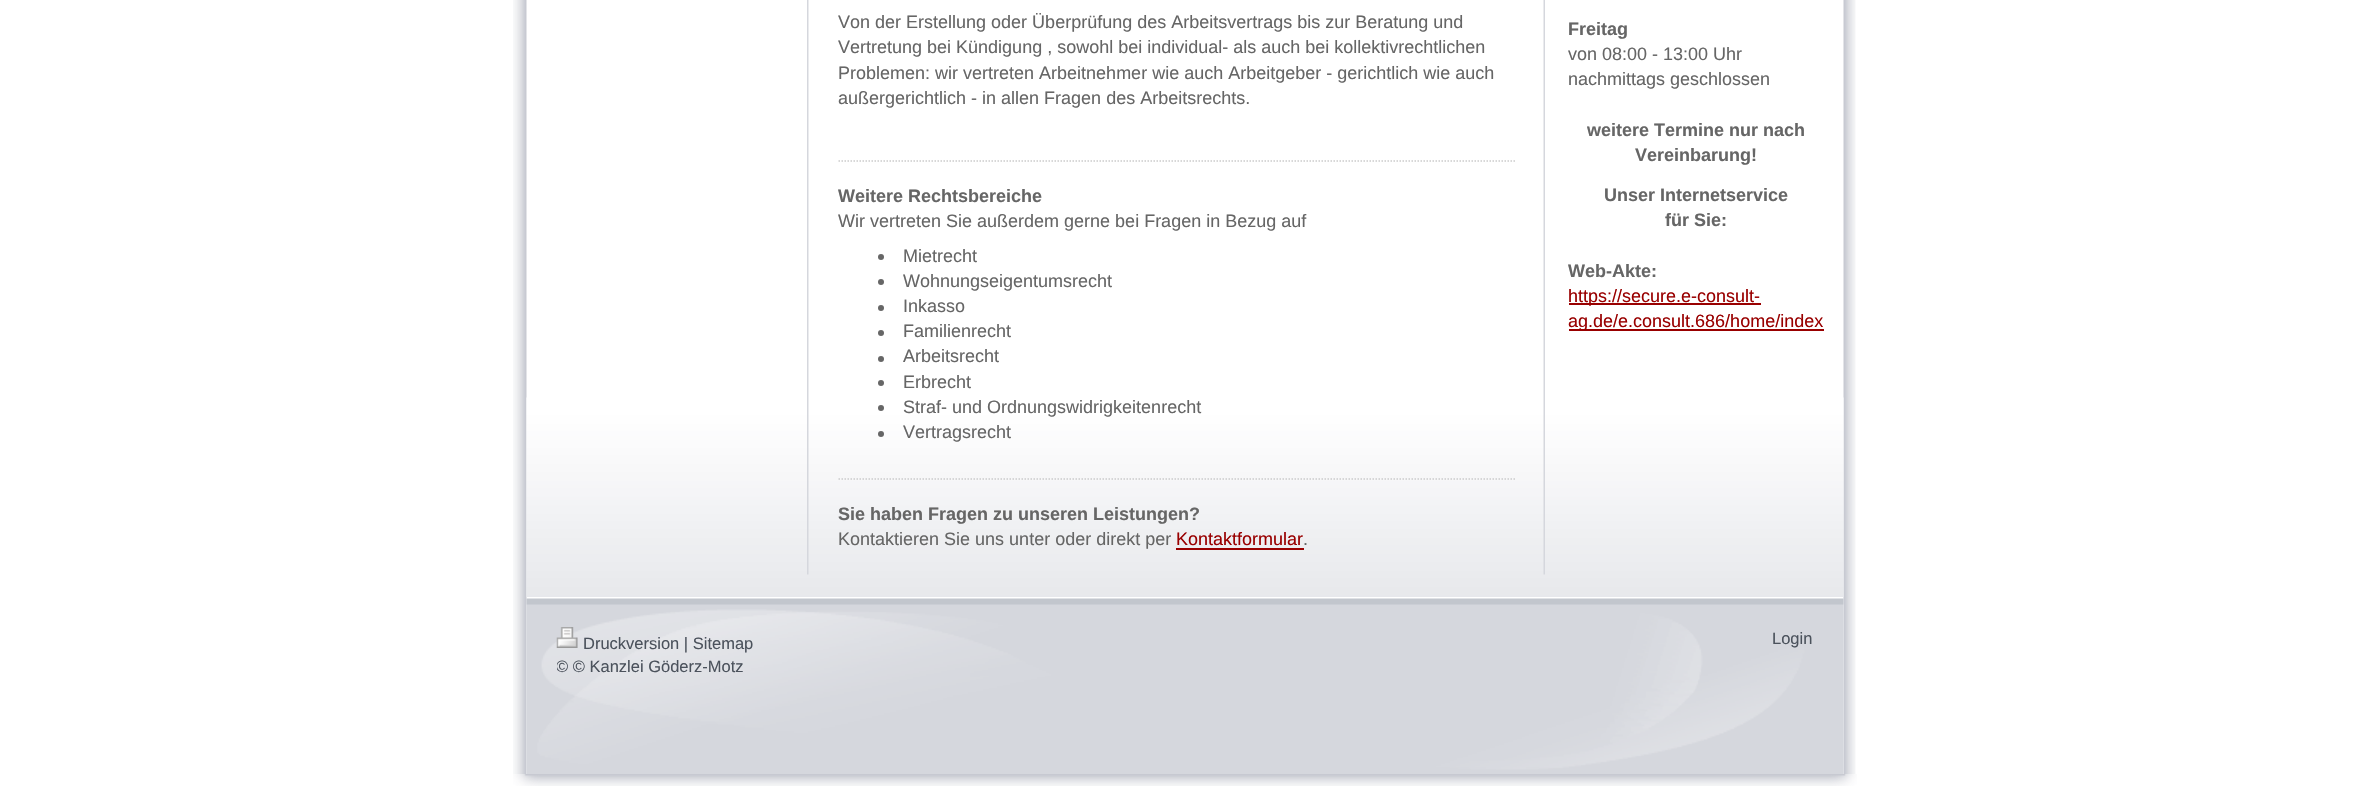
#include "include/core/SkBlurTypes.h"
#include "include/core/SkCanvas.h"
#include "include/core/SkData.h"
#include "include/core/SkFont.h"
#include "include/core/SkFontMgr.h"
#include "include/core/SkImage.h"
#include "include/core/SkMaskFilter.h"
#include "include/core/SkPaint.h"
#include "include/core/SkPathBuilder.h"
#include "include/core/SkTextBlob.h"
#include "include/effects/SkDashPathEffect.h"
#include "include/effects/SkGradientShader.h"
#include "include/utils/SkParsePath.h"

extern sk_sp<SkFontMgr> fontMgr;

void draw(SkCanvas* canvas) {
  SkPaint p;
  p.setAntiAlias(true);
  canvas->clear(SK_ColorWHITE);
  canvas->drawImageRect(SkImages::DeferredFromEncodedData(SkData::MakeFromFileName("images/1.png")), SkRect::MakeLTRB(513, 0, 1856, 774), SkSamplingOptions());
  canvas->drawImageRect(SkImages::DeferredFromEncodedData(SkData::MakeFromFileName("images/2.png")), SkRect::MakeLTRB(526, 397, 1844, 597), SkSamplingOptions());
  canvas->drawImageRect(SkImages::DeferredFromEncodedData(SkData::MakeFromFileName("images/3.png")), SkRect::MakeLTRB(807, 0, 1545, 575), SkSamplingOptions());
  p.setStyle(SkPaint::kStroke_Style);
  p.setStrokeWidth(1.5f);
  p.setColor(SkColorSetRGB(204, 204, 204));
  p.setPathEffect(SkDashPathEffect::Make({{1.5f, 1.5f}}, 0));
  canvas->drawPath(SkPathBuilder().moveTo(838.5f, 161).lineTo(1516.5f, 161).detach(), p);
  p.setPathEffect(nullptr);
  p.setStyle(SkPaint::kFill_Style);
  p.setColor(SkColorSetRGB(102, 102, 102));
  canvas->drawCircle(881, 257, 3, p);
  canvas->drawCircle(881, 282, 3, p);
  canvas->drawCircle(881, 308, 3, p);
  canvas->drawCircle(881, 333, 3, p);
  canvas->drawCircle(881, 359, 3, p);
  canvas->drawCircle(881, 383, 3, p);
  canvas->drawCircle(881, 408, 3, p);
  canvas->drawCircle(881, 434, 3, p);
  p.setStyle(SkPaint::kStroke_Style);
  p.setColor(SkColorSetRGB(204, 204, 204));
  p.setPathEffect(SkDashPathEffect::Make({{1.5f, 1.5f}}, 0));
  canvas->drawPath(SkPathBuilder().moveTo(838.5f, 479).lineTo(1516.5f, 479).detach(), p);
  p.setPathEffect(nullptr);
  p.setStyle(SkPaint::kFill_Style);
  p.setColor(SkColorSetRGB(153, 0, 0));
  canvas->drawRect(SkRect::MakeLTRB(1176, 548, 1304, 550), p);
  canvas->drawRect(SkRect::MakeLTRB(1569, 303, 1761, 305), p);
  canvas->drawRect(SkRect::MakeLTRB(1569, 329, 1824, 331), p);
  canvas->drawImageRect(SkImages::DeferredFromEncodedData(SkData::MakeFromFileName("images/4.png")), SkRect::MakeLTRB(526, 598, 1844, 774), SkSamplingOptions());
  canvas->drawImageRect(SkImages::DeferredFromEncodedData(SkData::MakeFromFileName("images/5.png")), SkRect::MakeLTRB(556, 627, 578, 648), SkSamplingOptions());
  canvas->drawImageRect(SkImages::DeferredFromEncodedData(SkData::MakeFromFileName("images/6.png")), SkRect::MakeLTRB(513, 774, 1857, 786), SkSamplingOptions());
  SkFont font1(fontMgr->matchFamilyStyle("Liberation Sans", SkFontStyle::Normal()), 18);
  font1.setSubpixel(true);
  p.setColor(SkColorSetRGB(102, 102, 102));
  canvas->drawString("Von der Erstellung oder Überprüfung des Arbeitsvertrags bis zur Beratung und", 838, 28, font1, p);
  canvas->drawString("Vertretung bei Kündigung , sowohl bei individual- als auch bei kollektivrechtlichen", 838, 53, font1, p);
  canvas->drawString("Problemen: wir vertreten Arbeitnehmer wie auch Arbeitgeber - gerichtlich wie auch", 838, 79, font1, p);
  canvas->drawString("außergerichtlich - in allen Fragen des Arbeitsrechts.", 838, 104, font1, p);
  SkFont font2(fontMgr->matchFamilyStyle("Liberation Sans", SkFontStyle::Bold()), 18);
  font2.setSubpixel(true);
  canvas->drawString("Weitere Rechtsbereiche", 838, 202, font2, p);
  canvas->drawString("Wir vertreten Sie außerdem gerne bei Fragen in Bezug auf", 838, 227, font1, p);
  canvas->drawString("Mietrecht", 903, 262, font1, p);
  canvas->drawString("Wohnungseigentumsrecht", 903, 287, font1, p);
  canvas->drawString("Inkasso", 903, 312, font1, p);
  canvas->drawString("Familienrecht", 903, 337, font1, p);
  canvas->drawString("Arbeitsrecht", 903, 362, font1, p);
  canvas->drawString("Erbrecht", 903, 388, font1, p);
  canvas->drawString("Straf- und Ordnungswidrigkeitenrecht", 903, 413, font1, p);
  canvas->drawString("Vertragsrecht", 903, 438, font1, p);
  canvas->drawString("Sie haben Fragen zu unseren Leistungen?", 838, 520, font2, p);
  canvas->drawString("Kontaktieren Sie uns unter oder direkt per", 838, 545, font1, p);
  p.setColor(SkColorSetRGB(153, 0, 0));
  canvas->drawString("Kontaktformular", 1176, 545, font1, p);
  p.setColor(SkColorSetRGB(102, 102, 102));
  canvas->drawString(".", 1303, 545, font1, p);
  canvas->drawString("Freitag", 1568, 35, font2, p);
  canvas->drawString("von 08:00 - 13:00 Uhr", 1568, 60, font1, p);
  canvas->drawString("nachmittags geschlossen", 1568, 85, font1, p);
  canvas->drawString("weitere Termine nur nach", 1587, 136, font2, p);
  canvas->drawString("Vereinbarung!", 1635, 161, font2, p);
  canvas->drawString("Unser Internetservice", 1604, 201, font2, p);
  canvas->drawString("für Sie:", 1665, 226, font2, p);
  canvas->drawString("Web-Akte:", 1568, 277, font2, p);
  p.setColor(SkColorSetRGB(153, 0, 0));
  canvas->drawString("https://secure.e-consult-", 1568, 302, font1, p);
  canvas->drawString("ag.de/e.consult.686/home/index", 1568, 327, font1, p);
  SkFont font3(fontMgr->matchFamilyStyle("Liberation Sans", SkFontStyle::Normal()), 16.5f);
  font3.setSubpixel(true);
  p.setColor(SkColorSetRGB(75, 82, 92));
  canvas->drawString("Druckversion | Sitemap", 583, 649, font3, p);
  canvas->save();
  canvas->clipRect(SkRect::MakeLTRB(557, 627, 1814, 678));
  canvas->drawString("© © Kanzlei Göderz-Motz", 556, 672, font3, p);
  canvas->restore();
  canvas->drawString("Login", 1772, 644, font3, p);
}
